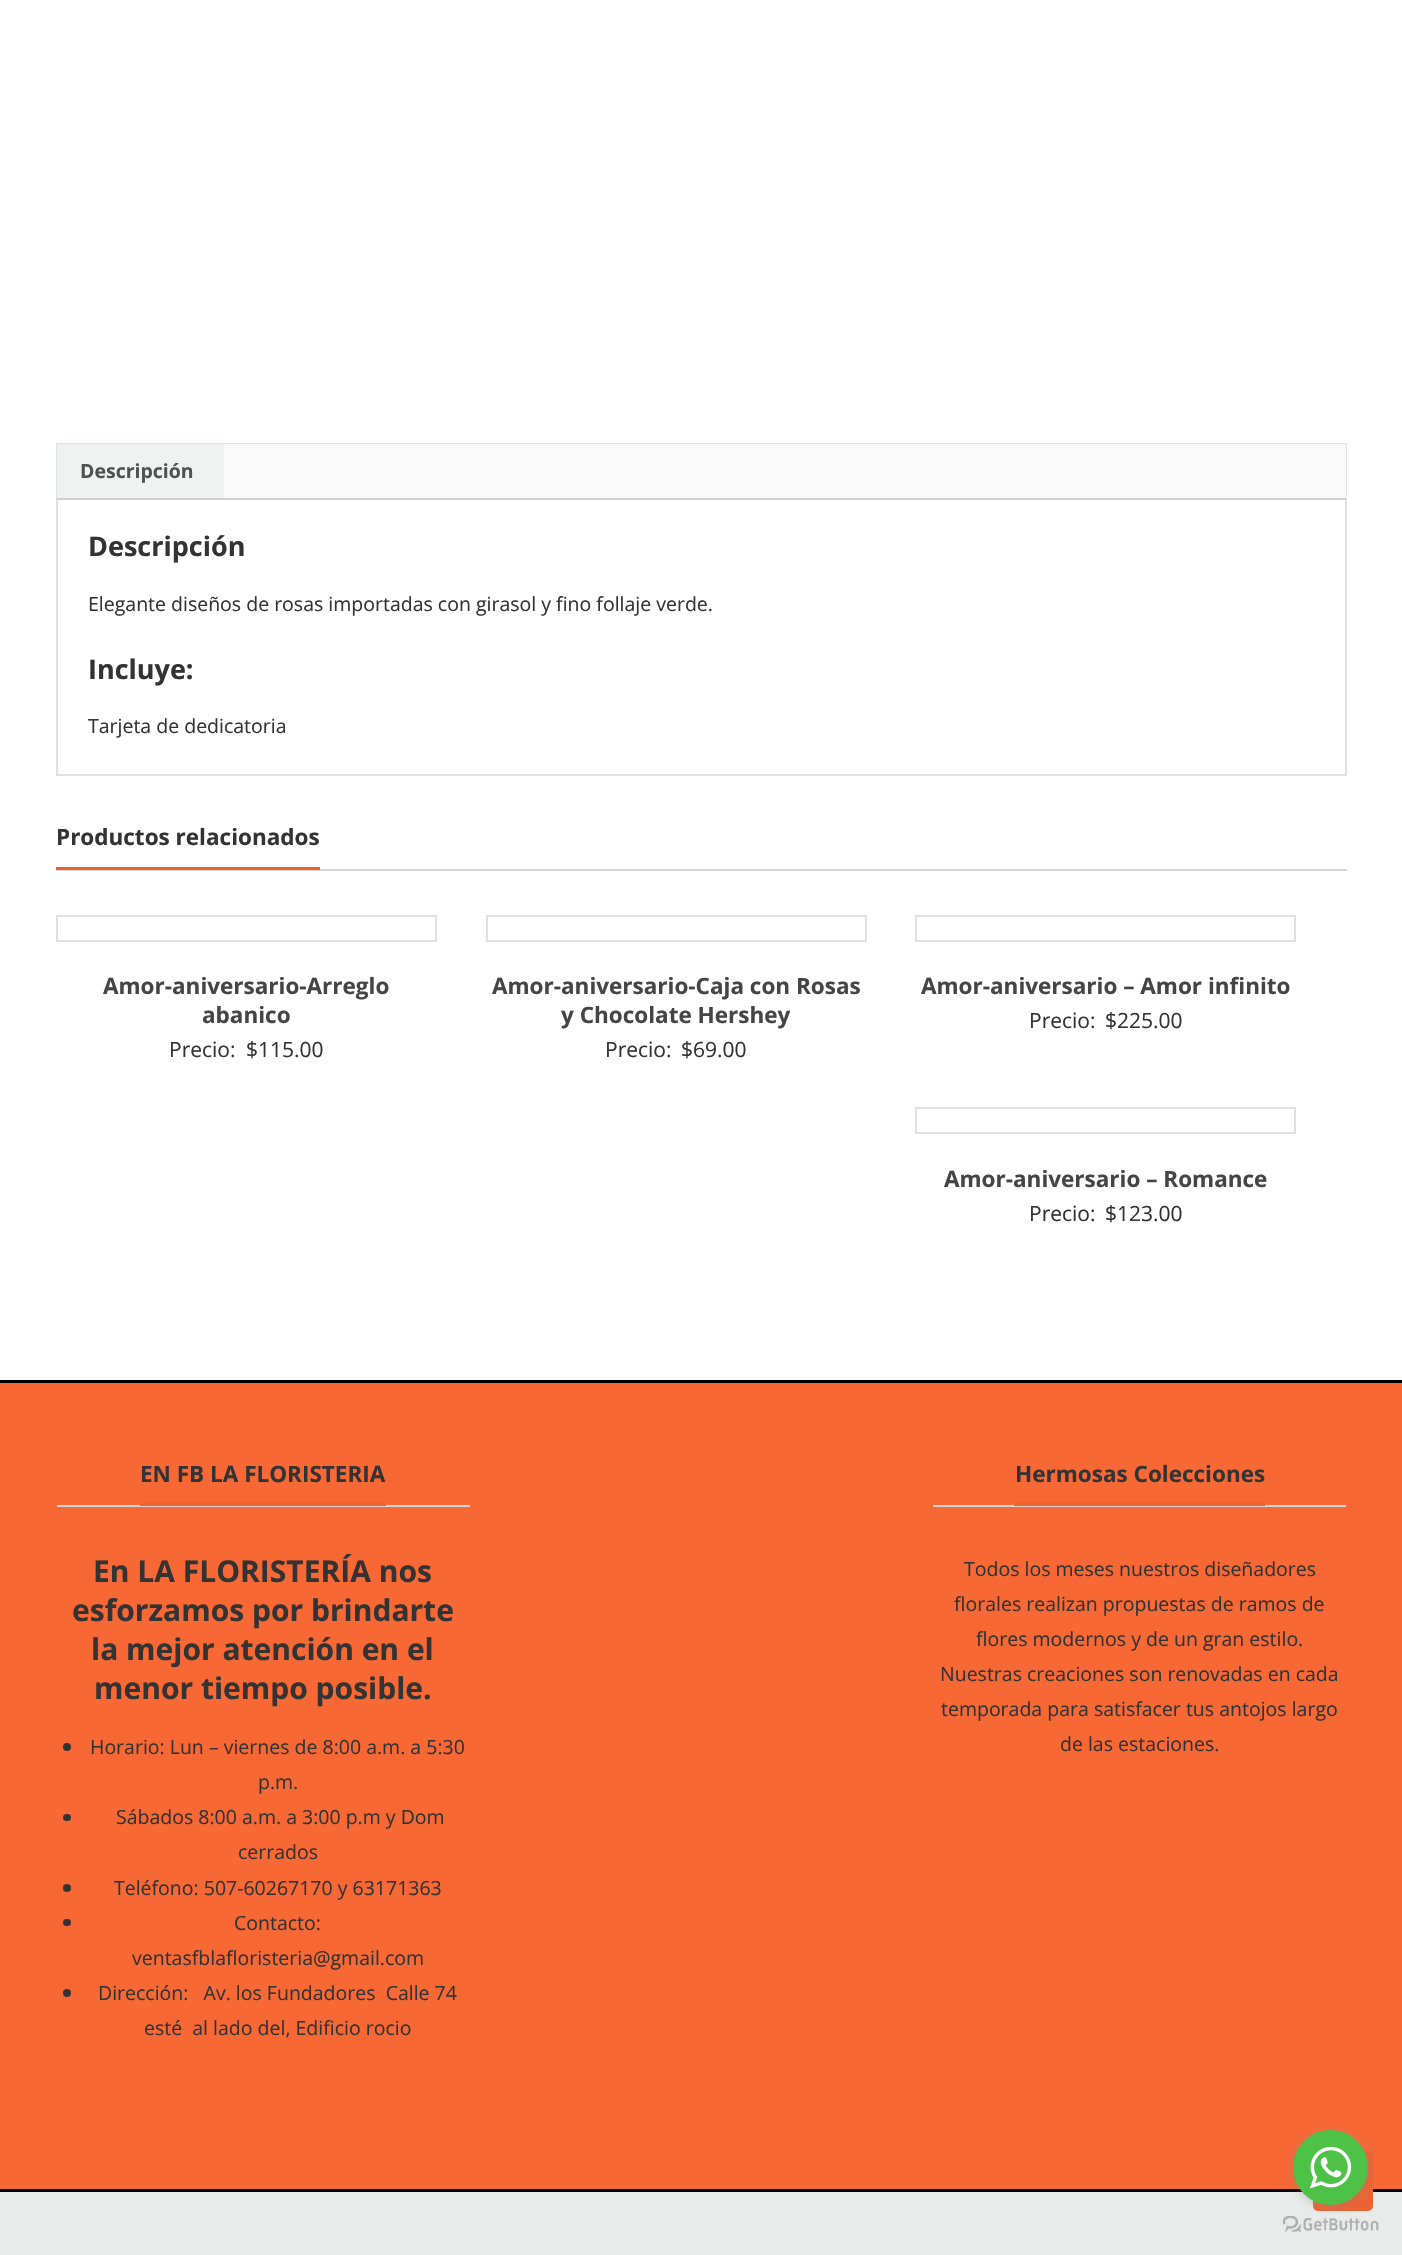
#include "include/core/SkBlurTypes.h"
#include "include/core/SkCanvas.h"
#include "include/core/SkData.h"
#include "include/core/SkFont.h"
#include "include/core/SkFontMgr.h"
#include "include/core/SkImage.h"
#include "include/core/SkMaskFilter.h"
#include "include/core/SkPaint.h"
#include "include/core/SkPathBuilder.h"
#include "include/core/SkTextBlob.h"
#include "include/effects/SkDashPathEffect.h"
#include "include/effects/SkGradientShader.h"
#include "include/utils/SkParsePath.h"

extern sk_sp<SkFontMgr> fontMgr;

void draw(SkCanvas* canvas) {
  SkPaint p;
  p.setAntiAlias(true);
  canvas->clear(SK_ColorWHITE);
  p.setStyle(SkPaint::kStroke_Style);
  p.setStrokeWidth(2);
  p.setColor(SkColorSetRGB(225, 225, 225));
  canvas->drawRect(SkRect::MakeLTRB(57, 444, 1346, 775), p);
  p.setStyle(SkPaint::kFill_Style);
  p.setColor(SkColorSetRGB(249, 249, 249));
  canvas->drawRect(SkRect::MakeLTRB(224, 444, 1346, 498), p);
  p.setColor(SkColorSetRGB(240, 242, 241));
  canvas->drawRect(SkRect::MakeLTRB(57, 444, 224, 498), p);
  p.setColor(SkColorSetRGB(211, 206, 210));
  canvas->drawRect(SkRect::MakeLTRB(57, 498, 1346, 500), p);
  p.setColor(SkColorSetRGB(214, 214, 214));
  canvas->drawRect(SkRect::MakeLTRB(56, 869, 1347, 871), p);
  p.setColor(SkColorSetRGB(235, 99, 51));
  canvas->drawRect(SkRect::MakeLTRB(56, 867, 320, 870), p);
  p.setStyle(SkPaint::kStroke_Style);
  p.setColor(SkColorSetRGB(225, 225, 225));
  canvas->drawRect(SkRect::MakeLTRB(57, 916, 436, 941), p);
  canvas->drawRect(SkRect::MakeLTRB(487, 916, 866, 941), p);
  canvas->drawRect(SkRect::MakeLTRB(916, 916, 1295, 941), p);
  canvas->drawRect(SkRect::MakeLTRB(916, 1108, 1295, 1133), p);
  p.setStyle(SkPaint::kFill_Style);
  p.setColor(SkColorSetRGB(247, 104, 53));
  canvas->drawRect(SkRect::MakeLTRB(0, 1383, 1402, 2189), p);
  p.setColor(SK_ColorBLACK);
  canvas->drawRect(SkRect::MakeLTRB(0, 1380, 1402, 1383), p);
  canvas->drawRect(SkRect::MakeLTRB(0, 2189, 1402, 2192), p);
  p.setColor(SkColorSetRGB(214, 214, 214));
  canvas->drawRect(SkRect::MakeLTRB(57, 1505, 470, 1507), p);
  p.setColor(SkColorSetRGB(235, 99, 51));
  canvas->drawRect(SkRect::MakeLTRB(140, 1503, 386, 1506), p);
  p.setColor(SkColorSetRGB(51, 51, 51));
  canvas->drawCircle(67, 1747, 4, p);
  canvas->drawRoundRect(SkRect::MakeLTRB(63, 1814, 71, 1821), 3.5f, 3.5f, p);
  canvas->drawCircle(67, 1888, 4, p);
  canvas->drawRoundRect(SkRect::MakeLTRB(63, 1919, 71, 1926), 3.5f, 3.5f, p);
  canvas->drawCircle(67, 1993, 4, p);
  p.setColor(SkColorSetRGB(214, 214, 214));
  canvas->drawRect(SkRect::MakeLTRB(933, 1505, 1346, 1507), p);
  p.setColor(SkColorSetRGB(235, 99, 51));
  canvas->drawRect(SkRect::MakeLTRB(1014, 1503, 1265, 1506), p);
  p.setColor(SkColorSetRGB(233, 235, 235));
  canvas->drawRect(SkRect::MakeLTRB(0, 2192, 1402, 2255), p);
  p.setColor(SkColorSetRGB(235, 99, 51));
  canvas->drawRoundRect(SkRect::MakeLTRB(1313, 2151, 1373, 2211), 5, 5, p);
  canvas->drawImageRect(SkImages::DeferredFromEncodedData(SkData::MakeFromFileName("images/2.png")), SkRect::MakeLTRB(1283, 2216, 1379, 2232), SkSamplingOptions());
  p.setColor(SkColorSetARGB(102, 136, 136, 136));
  p.setMaskFilter(SkMaskFilter::MakeBlur(kNormal_SkBlurStyle, 5));
  canvas->drawRoundRect(SkRect::MakeLTRB(1293, 2132, 1368, 2207), 37.5f, 37.5f, p);
  p.setMaskFilter(nullptr);
  p.setColor(SkColorSetRGB(77, 194, 71));
  canvas->drawCircle(1330.5f, 2167.5f, 37.5f, p);
  canvas->drawImageRect(SkImages::DeferredFromEncodedData(SkData::MakeFromFileName("images/1.png")), SkRect::MakeLTRB(1310, 2146, 1352, 2189), SkSamplingOptions());
  SkFont font1(fontMgr->matchFamilyStyle("Open Sans", SkFontStyle::Bold()), 19.5f);
  font1.setSubpixel(true);
  p.setColor(SkColorSetRGB(81, 81, 81));
  canvas->drawString("Descripción", 80, 478, font1, p);
  SkFont font2(fontMgr->matchFamilyStyle("Open Sans", SkFontStyle::Bold()), 27);
  font2.setSubpixel(true);
  p.setColor(SkColorSetRGB(51, 51, 51));
  canvas->drawString("Descripción", 88, 556, font2, p);
  SkFont font3(fontMgr->matchFamilyStyle("Open Sans", SkFontStyle::Normal()), 19.5f);
  font3.setSubpixel(true);
  canvas->drawString("Elegante diseños de rosas importadas con girasol y fino follaje verde.", 88, 611, font3, p);
  canvas->drawString("Incluye:", 88, 679, font2, p);
  canvas->drawString("Tarjeta de dedicatoria", 88, 733, font3, p);
  SkFont font4(fontMgr->matchFamilyStyle("Open Sans", SkFontStyle::Bold()), 22.5f);
  font4.setSubpixel(true);
  canvas->drawString("Productos relacionados", 56, 845, font4, p);
  p.setColor(SkColorSetRGB(69, 69, 69));
  canvas->drawString("Amor-aniversario-Arreglo", 103, 994, font4, p);
  canvas->drawString("abanico", 202, 1023, font4, p);
  SkFont font5(fontMgr->matchFamilyStyle("Open Sans", SkFontStyle::Normal()), 21);
  font5.setSubpixel(true);
  p.setColor(SkColorSetRGB(51, 51, 51));
  canvas->drawString("Precio:", 169, 1057, font5, p);
  canvas->drawString("$115.00", 246, 1057, font5, p);
  p.setColor(SkColorSetRGB(69, 69, 69));
  canvas->drawString("Amor-aniversario-Caja con Rosas", 492, 994, font4, p);
  canvas->drawString("y Chocolate Hershey", 561, 1023, font4, p);
  p.setColor(SkColorSetRGB(51, 51, 51));
  canvas->drawString("Precio:", 605, 1057, font5, p);
  canvas->drawString("$69.00", 681, 1057, font5, p);
  p.setColor(SkColorSetRGB(69, 69, 69));
  canvas->drawString("Amor-aniversario – Amor infinito", 921, 994, font4, p);
  p.setColor(SkColorSetRGB(51, 51, 51));
  canvas->drawString("Precio:", 1029, 1028, font5, p);
  canvas->drawString("$225.00", 1105, 1028, font5, p);
  p.setColor(SkColorSetRGB(69, 69, 69));
  canvas->drawString("Amor-aniversario – Romance", 944, 1187, font4, p);
  p.setColor(SkColorSetRGB(51, 51, 51));
  canvas->drawString("Precio:", 1029, 1221, font5, p);
  canvas->drawString("$123.00", 1105, 1221, font5, p);
  canvas->drawString("EN FB LA FLORISTERIA", 140, 1482, font4, p);
  SkFont font6(fontMgr->matchFamilyStyle("Open Sans", SkFontStyle::Bold()), 30);
  font6.setSubpixel(true);
  canvas->drawString("En LA FLORISTERÍA nos", 93, 1582, font6, p);
  canvas->drawString("esforzamos por brindarte", 72, 1621, font6, p);
  canvas->drawString("la mejor atención en el", 91, 1660, font6, p);
  canvas->drawString("menor tiempo posible.", 94, 1699, font6, p);
  canvas->drawString("Horario: Lun – viernes de 8:00 a.m. a 5:30", 90, 1754, font3, p);
  canvas->drawString("p.m.", 258, 1789, font3, p);
  canvas->drawString("Sábados 8:00 a.m. a 3:00 p.m y Dom", 116, 1824, font3, p);
  canvas->drawString("cerrados", 238, 1859, font3, p);
  canvas->drawString("Teléfono: 507-60267170 y 63171363", 114, 1895, font3, p);
  canvas->drawString("Contacto:", 234, 1930, font3, p);
  canvas->drawString("ventasfblafloristeria@gmail.com", 132, 1965, font3, p);
  canvas->drawString("Dirección:   Av. los Fundadores  Calle 74", 98, 2000, font3, p);
  canvas->drawString("esté  al lado del, Edificio rocio", 144, 2035, font3, p);
  canvas->drawString("Hermosas Colecciones", 1015, 1482, font4, p);
  canvas->drawString("Todos los meses nuestros diseñadores", 964, 1576, font3, p);
  canvas->drawString("florales realizan propuestas de ramos de", 954, 1611, font3, p);
  canvas->drawString("flores modernos y de un gran estilo.", 976, 1646, font3, p);
  canvas->drawString("Nuestras creaciones son renovadas en cada", 940, 1681, font3, p);
  canvas->drawString("temporada para satisfacer tus antojos largo", 941, 1716, font3, p);
  canvas->drawString("de las estaciones.", 1060, 1751, font3, p);
}
